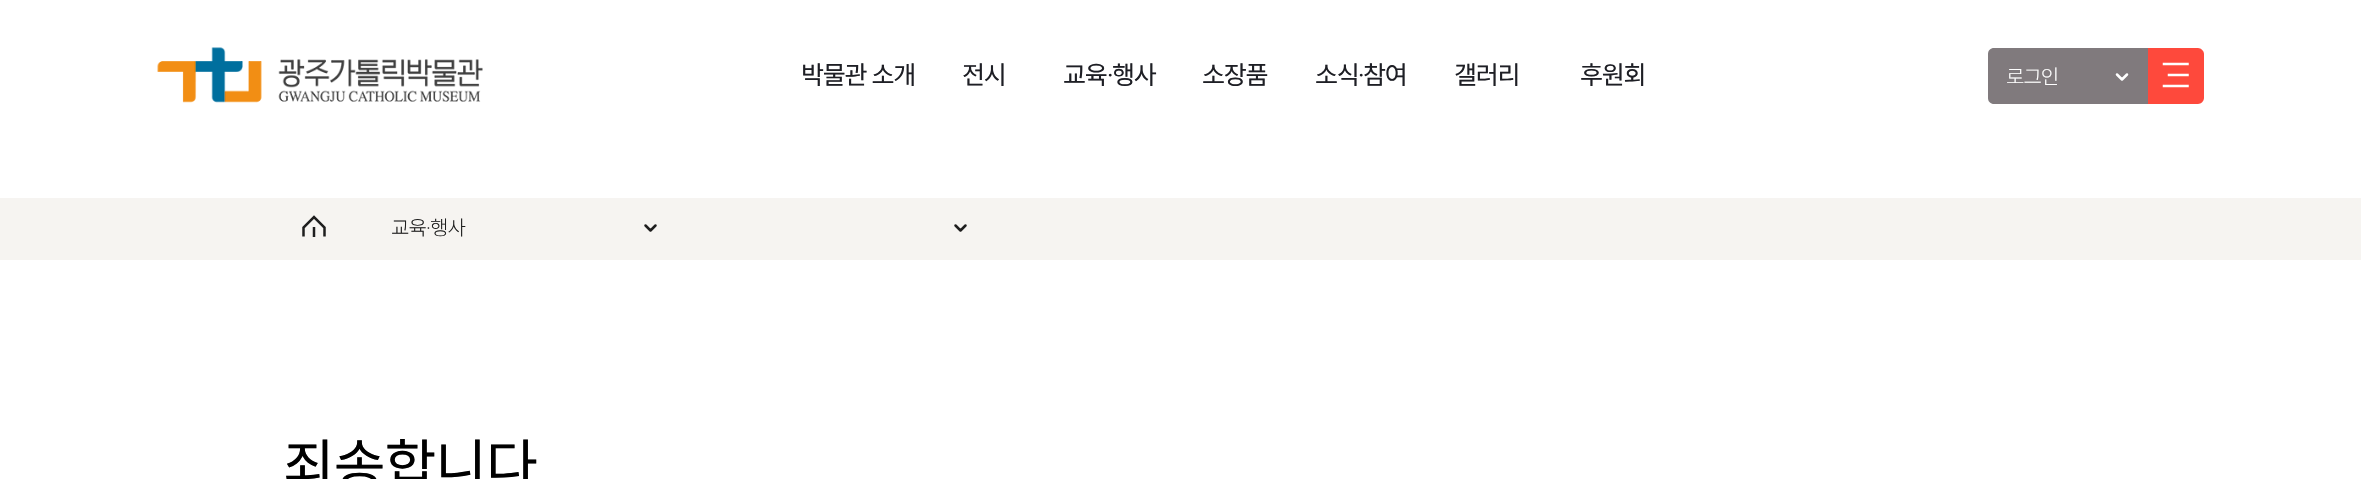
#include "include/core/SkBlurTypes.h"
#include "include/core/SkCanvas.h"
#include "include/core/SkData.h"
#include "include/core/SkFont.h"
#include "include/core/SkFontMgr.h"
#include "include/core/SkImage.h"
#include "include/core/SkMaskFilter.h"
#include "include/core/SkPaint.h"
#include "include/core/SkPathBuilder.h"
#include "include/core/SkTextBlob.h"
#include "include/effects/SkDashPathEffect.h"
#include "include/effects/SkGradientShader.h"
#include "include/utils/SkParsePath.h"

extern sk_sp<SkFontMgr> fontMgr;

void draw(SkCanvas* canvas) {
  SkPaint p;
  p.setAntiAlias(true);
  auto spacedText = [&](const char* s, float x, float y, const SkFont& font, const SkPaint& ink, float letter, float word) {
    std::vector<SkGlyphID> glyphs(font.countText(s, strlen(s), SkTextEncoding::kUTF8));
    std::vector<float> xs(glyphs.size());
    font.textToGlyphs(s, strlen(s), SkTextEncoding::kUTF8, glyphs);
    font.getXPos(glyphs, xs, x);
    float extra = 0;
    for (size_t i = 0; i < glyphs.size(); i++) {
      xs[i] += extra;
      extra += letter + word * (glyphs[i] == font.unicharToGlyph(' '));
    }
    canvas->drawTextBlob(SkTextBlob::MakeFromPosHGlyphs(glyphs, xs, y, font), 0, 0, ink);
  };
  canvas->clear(SK_ColorWHITE);
  canvas->drawImageRect(SkImages::DeferredFromEncodedData(SkData::MakeFromFileName("images/1.png")), SkRect::MakeLTRB(157, 47, 483, 103), SkSamplingOptions());
  p.setColor(SkColorSetRGB(128, 122, 125));
  canvas->drawPath(SkPathBuilder().moveTo(1994, 48).lineTo(2148, 48).lineTo(2148, 104).lineTo(1994, 104).cubicTo(1990.5f, 104, 1988, 101.5f, 1988, 98).lineTo(1988, 54).cubicTo(1988, 50.5f, 1990.5f, 48, 1994, 48).close().detach(), p);
  p.setStyle(SkPaint::kStroke_Style);
  p.setStrokeWidth(2.5f);
  p.setStrokeCap(SkPaint::kRound_Cap);
  p.setColor(SK_ColorWHITE);
  canvas->drawPath(SkPathBuilder().moveTo(2122, 79.5f).lineTo(2127, 74.5f).moveTo(2117, 74.5f).lineTo(2122, 79.5f).detach(), p);
  p.setStyle(SkPaint::kFill_Style);
  p.setColor(SkColorSetRGB(254, 73, 60));
  canvas->drawPath(SkPathBuilder().moveTo(2148, 48).lineTo(2148, 104).lineTo(2198, 104).cubicTo(2201, 104, 2204, 101, 2204, 98).lineTo(2204, 54).cubicTo(2204, 51, 2201, 48, 2198, 48).close().detach(), p);
  p.setStyle(SkPaint::kStroke_Style);
  p.setStrokeCap(SkPaint::kSquare_Cap);
  p.setColor(SK_ColorWHITE);
  canvas->drawPath(SkPathBuilder().moveTo(2187.5f, 75).lineTo(2169, 75).moveTo(2187.5f, 64).lineTo(2164, 64).moveTo(2187.5f, 86).lineTo(2164, 86).detach(), p);
  p.setStyle(SkPaint::kFill_Style);
  p.setColor(SkColorSetRGB(246, 244, 241));
  canvas->drawRect(SkRect::MakeLTRB(0, 198, 2361, 260), p);
  p.setStyle(SkPaint::kStroke_Style);
  p.setStrokeCap(SkPaint::kButt_Cap);
  p.setColor(SkColorSetRGB(30, 30, 30));
  canvas->drawPath(SkPathBuilder().moveTo(303.5f, 236.5f).lineTo(303.5f, 227.5f).lineTo(314, 217).lineTo(324.5f, 227.5f).lineTo(324.5f, 236.5f).moveTo(314, 227).lineTo(314, 237).detach(), p);
  p.setStrokeCap(SkPaint::kRound_Cap);
  canvas->drawPath(SkPathBuilder().moveTo(650.5f, 230.5f).lineTo(655.5f, 225.5f).moveTo(645.5f, 225.5f).lineTo(650.5f, 230.5f).detach(), p);
  canvas->drawPath(SkPathBuilder().moveTo(960.5f, 230.5f).lineTo(965.5f, 225.5f).moveTo(955.5f, 225.5f).lineTo(960.5f, 230.5f).detach(), p);
  SkFont font1(fontMgr->matchFamilyStyle("Noto Sans KR", SkFontStyle::Normal()), 25);
  font1.setSubpixel(true);
  p.setStyle(SkPaint::kFill_Style);
  p.setColor(SkColorSetRGB(30, 31, 37));
  spacedText("박물관 소개", 801, 84, font1, p, -1.25f, 1);
  spacedText("전시", 962, 84, font1, p, -1.25f, 0);
  spacedText("교육", 1063, 84, font1, p, -1.25f, 0);
  SkFont font2(fontMgr->matchFamilyStyle("Roboto", SkFontStyle::Normal()), 25);
  font2.setSubpixel(true);
  spacedText("·", 1107, 84, font2, p, -1.25f, 0);
  spacedText("행사", 1112, 84, font1, p, -1.25f, 0);
  spacedText("소장품", 1202, 84, font1, p, -1.25f, 0);
  spacedText("소식", 1315, 84, font1, p, -1.25f, 0);
  spacedText("·", 1358, 84, font2, p, -1.25f, 0);
  spacedText("참여", 1363, 84, font1, p, -1.25f, 0);
  spacedText("갤러리", 1454, 84, font1, p, -1.25f, 0);
  spacedText("후원회", 1580, 84, font1, p, -1.25f, 0);
  SkFont font3(fontMgr->matchFamilyStyle("Noto Sans KR", SkFontStyle(300, SkFontStyle::kNormal_Width, SkFontStyle::kUpright_Slant)), 20);
  font3.setSubpixel(true);
  p.setColor(SK_ColorWHITE);
  spacedText("로그인", 2006, 84, font3, p, -1, 0);
  p.setColor(SkColorSetRGB(30, 30, 30));
  spacedText("교육", 391, 235, font3, p, -1, 0);
  SkFont font4(fontMgr->matchFamilyStyle("Roboto", SkFontStyle(300, SkFontStyle::kNormal_Width, SkFontStyle::kUpright_Slant)), 20);
  font4.setSubpixel(true);
  spacedText("·", 426, 235, font4, p, -1, 0);
  spacedText("행사", 430, 235, font3, p, -1, 0);
  SkFont font5(fontMgr->matchFamilyStyle("Noto Sans KR", SkFontStyle::Normal()), 56.25f);
  font5.setSubpixel(true);
  p.setColor(SK_ColorBLACK);
  spacedText("죄송합니다", 283, 486, font5, p, -1, 0);
}
